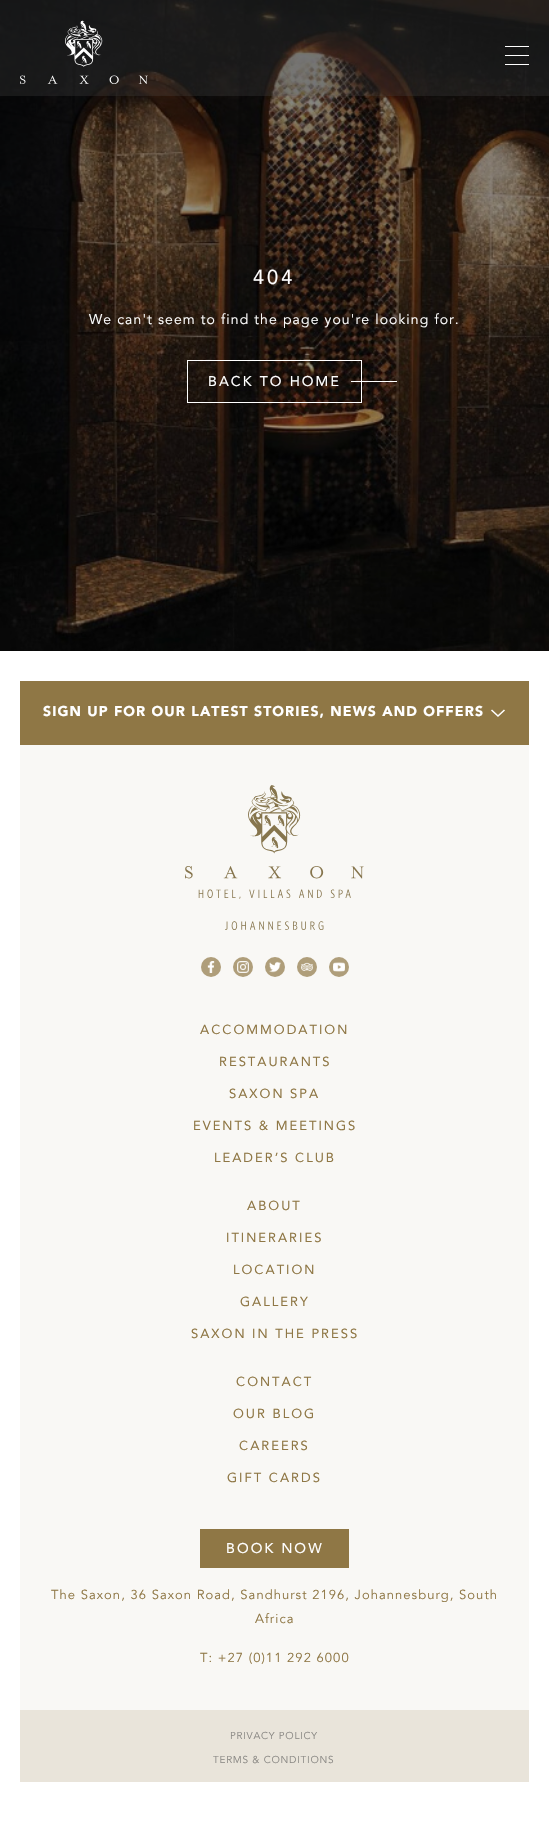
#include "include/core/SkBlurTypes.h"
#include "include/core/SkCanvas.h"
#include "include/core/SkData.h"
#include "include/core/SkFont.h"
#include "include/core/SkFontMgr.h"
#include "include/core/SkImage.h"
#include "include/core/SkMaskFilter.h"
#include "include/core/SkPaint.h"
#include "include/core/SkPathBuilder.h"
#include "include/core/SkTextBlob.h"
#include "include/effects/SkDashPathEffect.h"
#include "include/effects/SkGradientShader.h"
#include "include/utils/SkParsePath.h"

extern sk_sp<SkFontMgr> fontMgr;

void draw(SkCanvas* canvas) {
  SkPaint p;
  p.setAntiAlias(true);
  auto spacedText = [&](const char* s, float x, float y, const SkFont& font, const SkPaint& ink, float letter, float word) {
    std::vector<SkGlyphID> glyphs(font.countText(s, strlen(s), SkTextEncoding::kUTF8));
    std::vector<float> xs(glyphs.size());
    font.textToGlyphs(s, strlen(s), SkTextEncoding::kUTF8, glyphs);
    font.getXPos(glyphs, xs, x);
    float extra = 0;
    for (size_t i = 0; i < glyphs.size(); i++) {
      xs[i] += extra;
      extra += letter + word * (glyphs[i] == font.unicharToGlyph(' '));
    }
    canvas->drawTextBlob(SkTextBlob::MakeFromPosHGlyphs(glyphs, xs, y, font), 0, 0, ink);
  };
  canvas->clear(SK_ColorWHITE);
  canvas->drawImageRect(SkImages::DeferredFromEncodedData(SkData::MakeFromFileName("images/2.png")), SkRect::MakeLTRB(0, 0, 549, 651), SkSamplingOptions());
  p.setColor(SkColorSetARGB(64, 77, 77, 77));
  canvas->drawRect(SkRect::MakeLTRB(0, 0, 549, 96), p);
  canvas->drawImageRect(SkImages::DeferredFromEncodedData(SkData::MakeFromFileName("images/1.png")), SkRect::MakeLTRB(20, 20, 148, 84), SkSamplingOptions());
  p.setColor(SK_ColorWHITE);
  canvas->drawRect(SkRect::MakeLTRB(505, 46, 529, 47), p);
  canvas->drawRect(SkRect::MakeLTRB(505, 55, 529, 56), p);
  canvas->drawRect(SkRect::MakeLTRB(505, 64, 529, 65), p);
  p.setStyle(SkPaint::kStroke_Style);
  p.setStrokeWidth(1);
  canvas->drawRect(SkRect::MakeLTRB(187.5f, 360.5f, 361.5f, 402.5f), p);
  p.setStyle(SkPaint::kFill_Style);
  canvas->drawRect(SkRect::MakeLTRB(351, 381, 397, 382), p);
  p.setColor(SkColorSetRGB(143, 119, 69));
  canvas->drawRect(SkRect::MakeLTRB(20, 681, 529, 745), p);
  p.setStyle(SkPaint::kStroke_Style);
  p.setStrokeWidth(1.6f);
  p.setColor(SK_ColorWHITE);
  canvas->drawPath(SkPathBuilder().moveTo(491.5f, 710).lineTo(498, 716).lineTo(504.5f, 710).detach(), p);
  p.setStyle(SkPaint::kFill_Style);
  p.setColor(SkColorSetRGB(249, 248, 245));
  canvas->drawRect(SkRect::MakeLTRB(20, 745, 529, 1710), p);
  canvas->drawImageRect(SkImages::DeferredFromEncodedData(SkData::MakeFromFileName("images/3.png")), SkRect::MakeLTRB(185, 785, 364, 930), SkSamplingOptions());
  p.setColor(SkColorSetRGB(175, 158, 122));
  canvas->drawCircle(211, 967, 10, p);
  canvas->drawImageRect(SkImages::DeferredFromEncodedData(SkData::MakeFromFileName("images/4.png")), SkRect::MakeLTRB(207, 961, 215, 973), SkSamplingOptions());
  canvas->drawCircle(243, 967, 10, p);
  canvas->drawImageRect(SkImages::DeferredFromEncodedData(SkData::MakeFromFileName("images/5.png")), SkRect::MakeLTRB(237, 961, 249, 973), SkSamplingOptions());
  canvas->drawCircle(275, 967, 10, p);
  canvas->drawImageRect(SkImages::DeferredFromEncodedData(SkData::MakeFromFileName("images/6.png")), SkRect::MakeLTRB(269, 961, 281, 973), SkSamplingOptions());
  canvas->drawCircle(307, 967, 10, p);
  canvas->drawImageRect(SkImages::DeferredFromEncodedData(SkData::MakeFromFileName("images/7.png")), SkRect::MakeLTRB(301, 962, 313, 971), SkSamplingOptions());
  canvas->drawCircle(339, 967, 10, p);
  canvas->drawImageRect(SkImages::DeferredFromEncodedData(SkData::MakeFromFileName("images/8.png")), SkRect::MakeLTRB(333, 962, 345, 972), SkSamplingOptions());
  p.setColor(SkColorSetRGB(143, 119, 69));
  canvas->drawRect(SkRect::MakeLTRB(200, 1529, 349, 1568), p);
  p.setColor(SkColorSetRGB(233, 228, 218));
  canvas->drawRect(SkRect::MakeLTRB(20, 1710, 529, 1782), p);
  SkFont font1(fontMgr->matchFamilyStyle("Avenir", SkFontStyle::Normal()), 20);
  font1.setSubpixel(true);
  p.setColor(SK_ColorWHITE);
  spacedText("404", 253, 284, font1, p, 3, 0);
  SkFont font2(fontMgr->matchFamilyStyle("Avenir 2", SkFontStyle::Normal()), 14);
  font2.setSubpixel(true);
  spacedText("We can't seem to find the page you're looking for.", 89, 324, font2, p, 1.12f, 0);
  SkFont font3(fontMgr->matchFamilyStyle("Avenir", SkFontStyle::Normal()), 14);
  font3.setSubpixel(true);
  spacedText("BACK TO HOME", 208, 386, font3, p, 2.1f, 0);
  SkFont font4(fontMgr->matchFamilyStyle("Avenir", SkFontStyle(900, SkFontStyle::kNormal_Width, SkFontStyle::kUpright_Slant)), 14);
  font4.setSubpixel(true);
  spacedText("SIGN UP FOR OUR LATEST STORIES, NEWS AND OFFERS", 43, 716, font4, p, 1.12f, 0);
  SkFont font5(fontMgr->matchFamilyStyle("Avenir", SkFontStyle::Normal()), 13);
  font5.setSubpixel(true);
  p.setColor(SkColorSetRGB(143, 119, 69));
  spacedText("ACCOMMODATION", 200, 1034, font5, p, 2, 0);
  spacedText("RESTAURANTS", 219, 1066, font5, p, 2, 0);
  spacedText("SAXON SPA", 229, 1098, font5, p, 2, 0);
  spacedText("EVENTS & MEETINGS", 193, 1130, font5, p, 2, 0);
  spacedText("LEADER’S CLUB", 214, 1162, font5, p, 2, 0);
  spacedText("ABOUT", 247, 1210, font5, p, 2, 0);
  spacedText("ITINERARIES", 226, 1242, font5, p, 2, 0);
  spacedText("LOCATION", 233, 1274, font5, p, 2, 0);
  spacedText("GALLERY", 240, 1306, font5, p, 2, 0);
  spacedText("SAXON IN THE PRESS", 191, 1338, font5, p, 2, 0);
  spacedText("CONTACT", 236, 1386, font5, p, 2, 0);
  spacedText("OUR BLOG", 233, 1418, font5, p, 2, 0);
  spacedText("CAREERS", 239, 1450, font5, p, 2, 0);
  spacedText("GIFT CARDS", 227, 1482, font5, p, 2, 0);
  p.setColor(SK_ColorWHITE);
  spacedText("BOOK NOW", 226, 1553, font3, p, 2.1f, 0);
  SkFont font6(fontMgr->matchFamilyStyle("Avenir 2", SkFontStyle::Normal()), 13);
  font6.setSubpixel(true);
  p.setColor(SkColorSetRGB(143, 119, 69));
  spacedText("The Saxon, 36 Saxon Road, Sandhurst 2196, Johannesburg, South", 51, 1599, font6, p, 1.05f, 0);
  spacedText("Africa", 255, 1623, font6, p, 1.05f, 0);
  spacedText("T: +27 (0)11 292 6000", 200, 1662, font6, p, 1.05f, 0);
  SkFont font7(fontMgr->matchFamilyStyle("Avenir 2", SkFontStyle::Normal()), 10);
  font7.setSubpixel(true);
  p.setColor(SkColorSetRGB(139, 137, 133));
  spacedText("PRIVACY POLICY", 230, 1739, font7, p, 0.75f, 0);
  spacedText("TERMS & CONDITIONS", 213, 1763, font7, p, 0.75f, 0);
}
